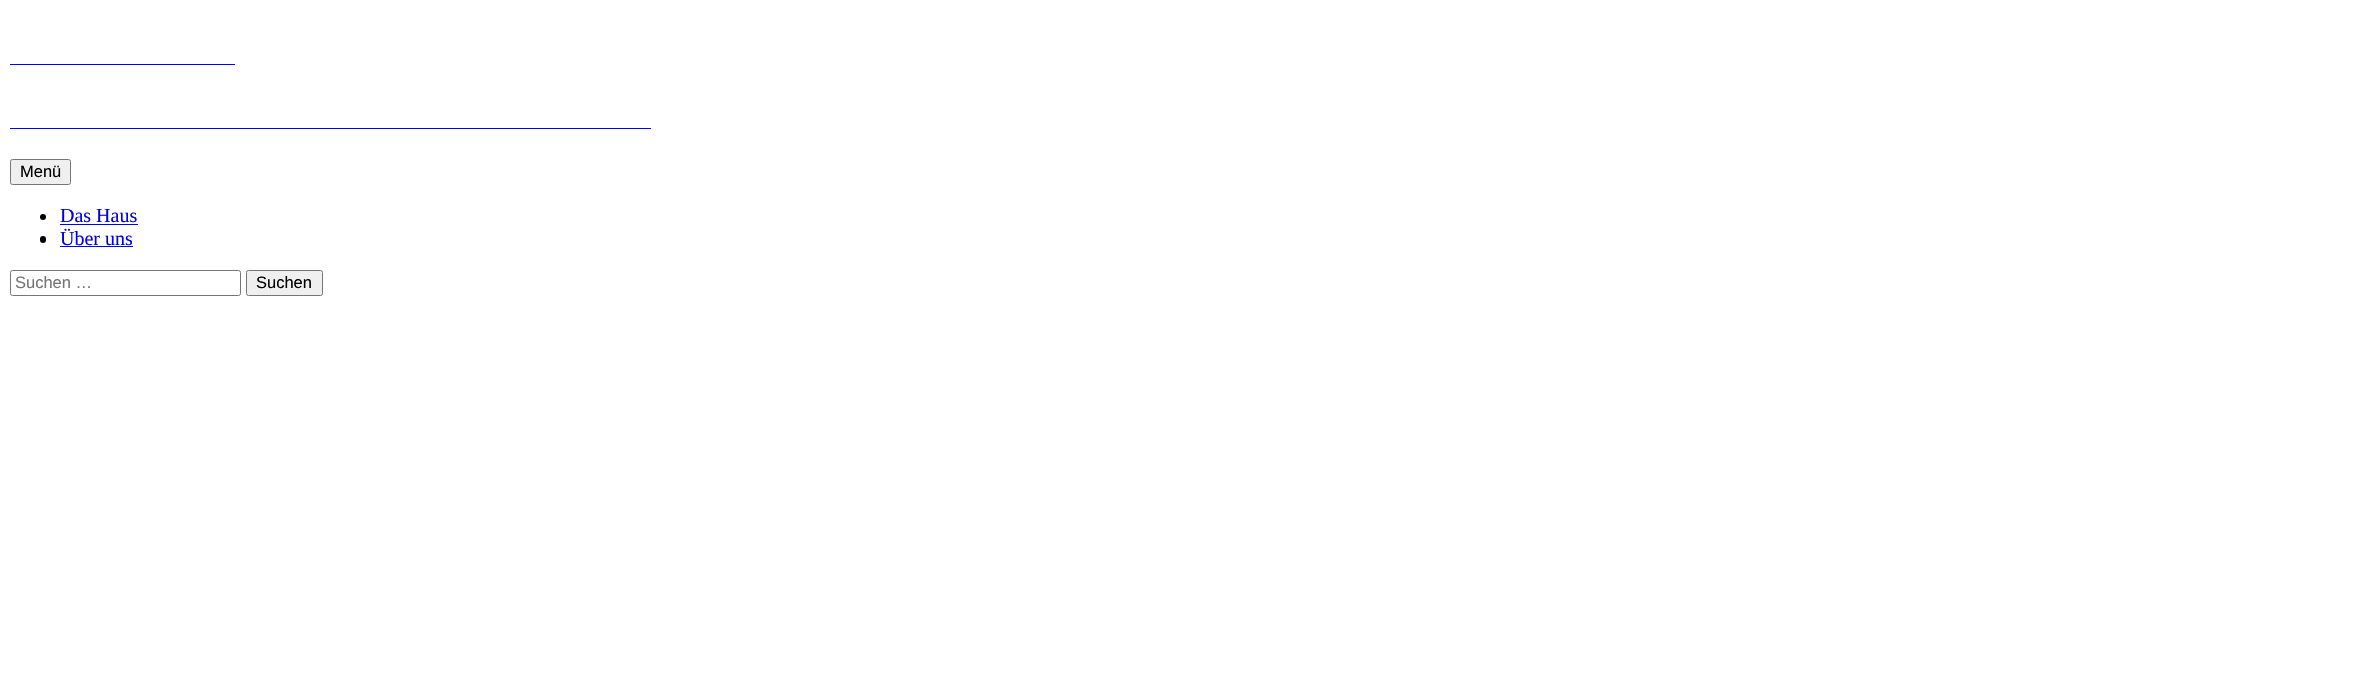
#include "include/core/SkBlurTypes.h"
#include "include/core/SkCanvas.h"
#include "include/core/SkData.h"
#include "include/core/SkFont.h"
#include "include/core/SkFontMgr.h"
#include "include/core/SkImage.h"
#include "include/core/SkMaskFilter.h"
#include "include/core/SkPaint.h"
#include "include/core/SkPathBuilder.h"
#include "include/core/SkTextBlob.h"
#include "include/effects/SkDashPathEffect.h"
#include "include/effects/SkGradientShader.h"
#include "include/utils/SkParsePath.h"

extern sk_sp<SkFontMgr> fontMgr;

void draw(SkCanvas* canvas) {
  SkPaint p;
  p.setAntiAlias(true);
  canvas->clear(SK_ColorWHITE);
  p.setColor(SkColorSetRGB(0, 0, 238));
  canvas->drawRect(SkRect::MakeLTRB(10, 64, 235, 65), p);
  canvas->drawRect(SkRect::MakeLTRB(10, 128, 651, 129), p);
  p.setColor(SkColorSetRGB(239, 239, 239));
  canvas->drawRoundRect(SkRect::MakeLTRB(10.5f, 159.5f, 70.5f, 184.5f), 2, 2, p);
  p.setStyle(SkPaint::kStroke_Style);
  p.setStrokeWidth(1);
  p.setColor(SkColorSetRGB(118, 118, 118));
  canvas->drawRoundRect(SkRect::MakeLTRB(10.5f, 159.5f, 70.5f, 184.5f), 2, 2, p);
  p.setStyle(SkPaint::kFill_Style);
  p.setColor(SK_ColorBLACK);
  canvas->drawCircle(43, 217, 3, p);
  p.setColor(SkColorSetRGB(0, 0, 238));
  canvas->drawRect(SkRect::MakeLTRB(60, 224, 138, 225), p);
  p.setColor(SK_ColorBLACK);
  canvas->drawRoundRect(SkRect::MakeLTRB(40, 236, 46, 243), 3, 3, p);
  p.setColor(SkColorSetRGB(0, 0, 238));
  canvas->drawRect(SkRect::MakeLTRB(60, 246, 133, 247), p);
  p.setStyle(SkPaint::kStroke_Style);
  p.setColor(SkColorSetRGB(118, 118, 118));
  canvas->drawRoundRect(SkRect::MakeLTRB(10.5f, 270.5f, 240.5f, 295.5f), 2, 2, p);
  p.setStyle(SkPaint::kFill_Style);
  p.setColor(SkColorSetRGB(239, 239, 239));
  canvas->drawRoundRect(SkRect::MakeLTRB(246.5f, 270.5f, 322.5f, 295.5f), 2, 2, p);
  p.setStyle(SkPaint::kStroke_Style);
  p.setColor(SkColorSetRGB(118, 118, 118));
  canvas->drawRoundRect(SkRect::MakeLTRB(246.5f, 270.5f, 322.5f, 295.5f), 2, 2, p);
  SkFont font1(fontMgr->matchFamilyStyle("Liberation Sans", SkFontStyle::Normal()), 16.5f);
  font1.setSubpixel(true);
  p.setStyle(SkPaint::kFill_Style);
  p.setColor(SK_ColorBLACK);
  canvas->drawString("Menü", 20, 177, font1, p);
  SkFont font2(fontMgr->matchFamilyStyle("Liberation Serif", SkFontStyle::Normal()), 20);
  font2.setSubpixel(true);
  p.setColor(SkColorSetRGB(0, 0, 238));
  canvas->drawString("Das Haus", 60, 222, font2, p);
  canvas->drawString("Über uns", 60, 245, font2, p);
  p.setColor(SkColorSetRGB(117, 117, 117));
  canvas->drawString("Suchen …", 15, 288, font1, p);
  p.setColor(SK_ColorBLACK);
  canvas->drawString("Suchen", 256, 288, font1, p);
}
